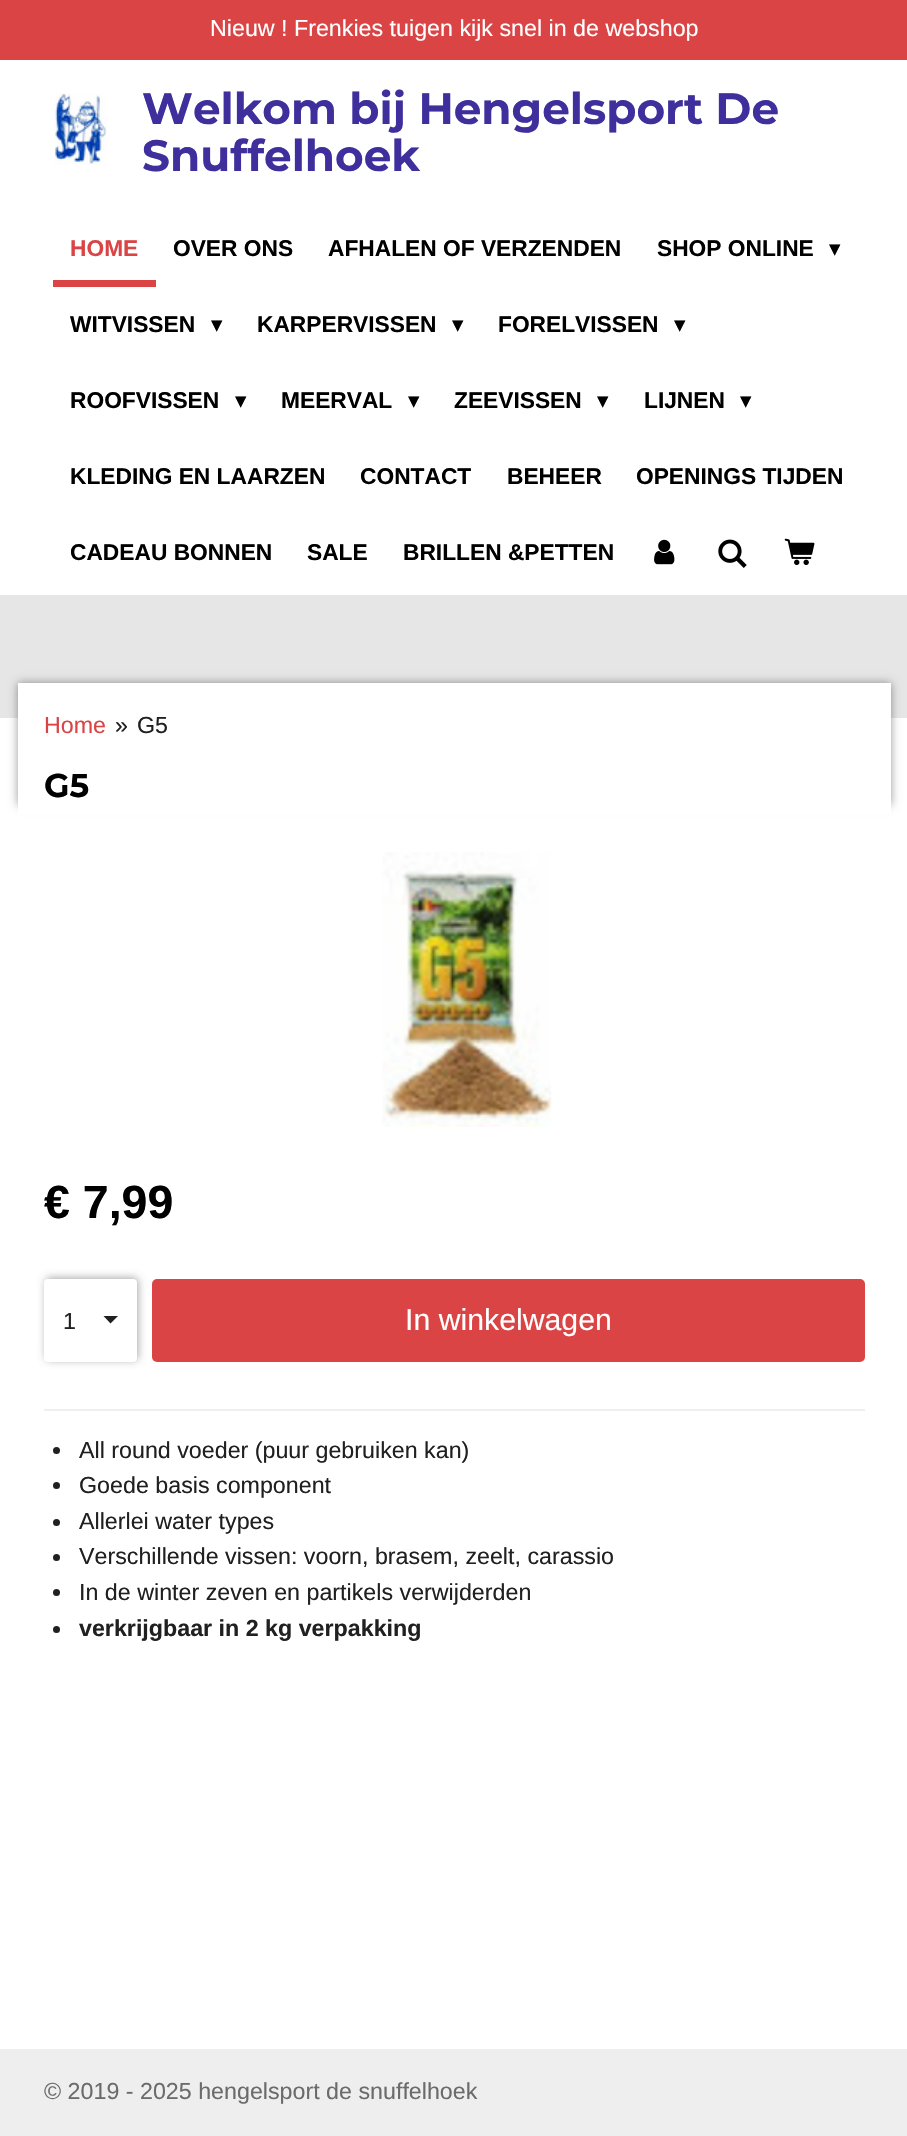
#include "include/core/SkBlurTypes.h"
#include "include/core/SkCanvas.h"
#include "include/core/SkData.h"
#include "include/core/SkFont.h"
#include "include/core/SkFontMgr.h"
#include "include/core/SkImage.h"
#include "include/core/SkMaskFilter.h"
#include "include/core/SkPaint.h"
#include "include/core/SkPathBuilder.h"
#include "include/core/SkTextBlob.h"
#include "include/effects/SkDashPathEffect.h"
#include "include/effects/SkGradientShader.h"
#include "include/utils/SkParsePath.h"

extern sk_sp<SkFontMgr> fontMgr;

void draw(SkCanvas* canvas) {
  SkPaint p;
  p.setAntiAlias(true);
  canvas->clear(SK_ColorWHITE);
  p.setColor(SkColorSetRGB(218, 68, 68));
  canvas->drawRect(SkRect::MakeLTRB(0, 0, 907, 60), p);
  canvas->drawImageRect(SkImages::DeferredFromEncodedData(SkData::MakeFromFileName("images/1.png")), SkRect::MakeLTRB(54, 93, 107, 165), SkSamplingOptions());
  canvas->drawRect(SkRect::MakeLTRB(53, 280, 156, 287), p);
  canvas->drawImageRect(SkImages::DeferredFromEncodedData(SkData::MakeFromFileName("images/2.png")), SkRect::MakeLTRB(654, 539, 675, 565), SkSamplingOptions());
  canvas->drawImageRect(SkImages::DeferredFromEncodedData(SkData::MakeFromFileName("images/3.png")), SkRect::MakeLTRB(718, 539, 747, 568), SkSamplingOptions());
  canvas->drawImageRect(SkImages::DeferredFromEncodedData(SkData::MakeFromFileName("images/4.png")), SkRect::MakeLTRB(784, 538, 815, 565), SkSamplingOptions());
  p.setColor(SkColorSetRGB(230, 230, 230));
  canvas->drawRect(SkRect::MakeLTRB(0, 595, 907, 718), p);
  p.setColor(SkColorSetARGB(102, 0, 0, 0));
  p.setMaskFilter(SkMaskFilter::MakeBlur(kNormal_SkBlurStyle, 4.5f));
  canvas->drawRect(SkRect::MakeLTRB(18, 683, 891, 805), p);
  p.setMaskFilter(nullptr);
  p.setColor(SK_ColorWHITE);
  canvas->drawRect(SkRect::MakeLTRB(18, 683, 891, 814), p);
  canvas->drawImageRect(SkImages::DeferredFromEncodedData(SkData::MakeFromFileName("images/5.png")), SkRect::MakeLTRB(382, 852, 552, 1127), SkSamplingOptions());
  p.setColor(SkColorSetARGB(89, 0, 0, 0));
  p.setMaskFilter(SkMaskFilter::MakeBlur(kNormal_SkBlurStyle, 4.5f));
  canvas->drawRoundRect(SkRect::MakeLTRB(46, 1278, 138, 1360), 4, 4, p);
  p.setMaskFilter(nullptr);
  p.setColor(SK_ColorWHITE);
  canvas->drawRoundRect(SkRect::MakeLTRB(44, 1279, 137, 1362), 4, 4, p);
  p.setColor(SkColorSetRGB(32, 32, 32));
  canvas->drawPath(SkPathBuilder().moveTo(110.5f, 1323.5f).lineTo(103.5f, 1316).lineTo(118, 1316).close().detach(), p);
  p.setColor(SkColorSetRGB(218, 68, 68));
  canvas->drawRoundRect(SkRect::MakeLTRB(152, 1279, 865, 1362), 5, 5, p);
  p.setColor(SkColorSetRGB(239, 239, 239));
  canvas->drawRect(SkRect::MakeLTRB(44, 1409, 865, 1411), p);
  p.setColor(SkColorSetRGB(32, 32, 32));
  canvas->drawCircle(56.5f, 1450.5f, 3.5f, p);
  canvas->drawCircle(56.5f, 1485.5f, 3.5f, p);
  canvas->drawCircle(56.5f, 1522.5f, 3.5f, p);
  canvas->drawCircle(56.5f, 1557.5f, 3.5f, p);
  canvas->drawCircle(56.5f, 1592.5f, 3.5f, p);
  canvas->drawCircle(56.5f, 1629.5f, 3.5f, p);
  p.setColor(SkColorSetRGB(238, 238, 238));
  canvas->drawRect(SkRect::MakeLTRB(0, 2049, 907, 2136), p);
  SkFont font1(fontMgr->matchFamilyStyle("Liberation Sans", SkFontStyle::Normal()), 23.25f);
  font1.setSubpixel(true);
  p.setColor(SK_ColorWHITE);
  canvas->drawString("Nieuw ! Frenkies tuigen kijk snel in de webshop", 210, 36, font1, p);
  SkFont font2(fontMgr->matchFamilyStyle("Montserrat", SkFontStyle::Bold()), 43.75f);
  font2.setSubpixel(true);
  p.setColor(SkColorSetRGB(62, 47, 157));
  canvas->drawString("Welkom bij Hengelsport De", 142, 124, font2, p);
  canvas->drawString("Snuffelhoek", 142, 171, font2, p);
  SkFont font3(fontMgr->matchFamilyStyle("Liberation Sans", SkFontStyle::Bold()), 22.75f);
  font3.setSubpixel(true);
  p.setColor(SkColorSetRGB(218, 68, 68));
  canvas->drawString("HOME", 70, 256, font3, p);
  p.setColor(SK_ColorBLACK);
  canvas->drawString("OVER ONS", 173, 256, font3, p);
  canvas->drawString("AFHALEN OF VERZENDEN", 328, 256, font3, p);
  canvas->drawString("SHOP ONLINE", 657, 256, font3, p);
  SkFont font4(fontMgr->matchFamilyStyle("DejaVu Sans", SkFontStyle::Normal()), 22.75f);
  font4.setSubpixel(true);
  canvas->drawString("▾", 829, 256, font4, p);
  canvas->drawString("WITVISSEN", 70, 332, font3, p);
  canvas->drawString("▾", 211, 332, font4, p);
  canvas->drawString("KARPERVISSEN", 257, 332, font3, p);
  canvas->drawString("▾", 452, 332, font4, p);
  canvas->drawString("FORELVISSEN", 498, 332, font3, p);
  canvas->drawString("▾", 674, 332, font4, p);
  canvas->drawString("ROOFVISSEN", 70, 408, font3, p);
  canvas->drawString("▾", 235, 408, font4, p);
  canvas->drawString("MEERVAL", 281, 408, font3, p);
  canvas->drawString("▾", 408, 408, font4, p);
  canvas->drawString("ZEEVISSEN", 454, 408, font3, p);
  canvas->drawString("▾", 597, 408, font4, p);
  canvas->drawString("LIJNEN", 644, 408, font3, p);
  canvas->drawString("▾", 740, 408, font4, p);
  canvas->drawString("KLEDING EN LAARZEN", 70, 484, font3, p);
  canvas->drawString("CONTACT", 360, 484, font3, p);
  canvas->drawString("BEHEER", 507, 484, font3, p);
  canvas->drawString("OPENINGS TIJDEN", 636, 484, font3, p);
  canvas->drawString("CADEAU BONNEN", 70, 560, font3, p);
  canvas->drawString("SALE", 307, 560, font3, p);
  canvas->drawString("BRILLEN &PETTEN", 403, 560, font3, p);
  p.setColor(SkColorSetRGB(218, 68, 68));
  canvas->drawString("Home", 44, 733, font1, p);
  p.setColor(SkColorSetRGB(32, 32, 32));
  canvas->drawString("»", 115, 733, font1, p);
  canvas->drawString("G5", 137, 733, font1, p);
  SkFont font5(fontMgr->matchFamilyStyle("Montserrat", SkFontStyle::Bold()), 33);
  font5.setSubpixel(true);
  p.setColor(SK_ColorBLACK);
  canvas->drawString("G5", 44, 797, font5, p);
  SkFont font6(fontMgr->matchFamilyStyle("Liberation Sans", SkFontStyle::Bold()), 46.5f);
  font6.setSubpixel(true);
  canvas->drawString("€ 7,99", 44, 1218, font6, p);
  p.setColor(SkColorSetRGB(32, 32, 32));
  canvas->drawString("1", 63, 1329, font1, p);
  SkFont font7(fontMgr->matchFamilyStyle("Liberation Sans", SkFontStyle::Normal()), 30.25f);
  font7.setSubpixel(true);
  p.setColor(SK_ColorWHITE);
  canvas->drawString("In winkelwagen", 405, 1330, font7, p);
  p.setColor(SkColorSetRGB(32, 32, 32));
  canvas->drawString("All round voeder (puur gebruiken kan)", 79, 1458, font1, p);
  canvas->drawString("Goede basis component", 79, 1493, font1, p);
  canvas->drawString("Allerlei water types", 79, 1529, font1, p);
  canvas->drawString("Verschillende vissen: voorn, brasem, zeelt, carassio", 79, 1564, font1, p);
  canvas->drawString("In de winter zeven en partikels verwijderden", 79, 1600, font1, p);
  SkFont font8(fontMgr->matchFamilyStyle("Liberation Sans", SkFontStyle::Bold()), 23.25f);
  font8.setSubpixel(true);
  canvas->drawString("verkrijgbaar in 2 kg verpakking", 79, 1636, font8, p);
  p.setColor(SkColorSetRGB(107, 107, 107));
  canvas->drawString("© 2019 - 2025 hengelsport de snuffelhoek", 44, 2099, font1, p);
}
